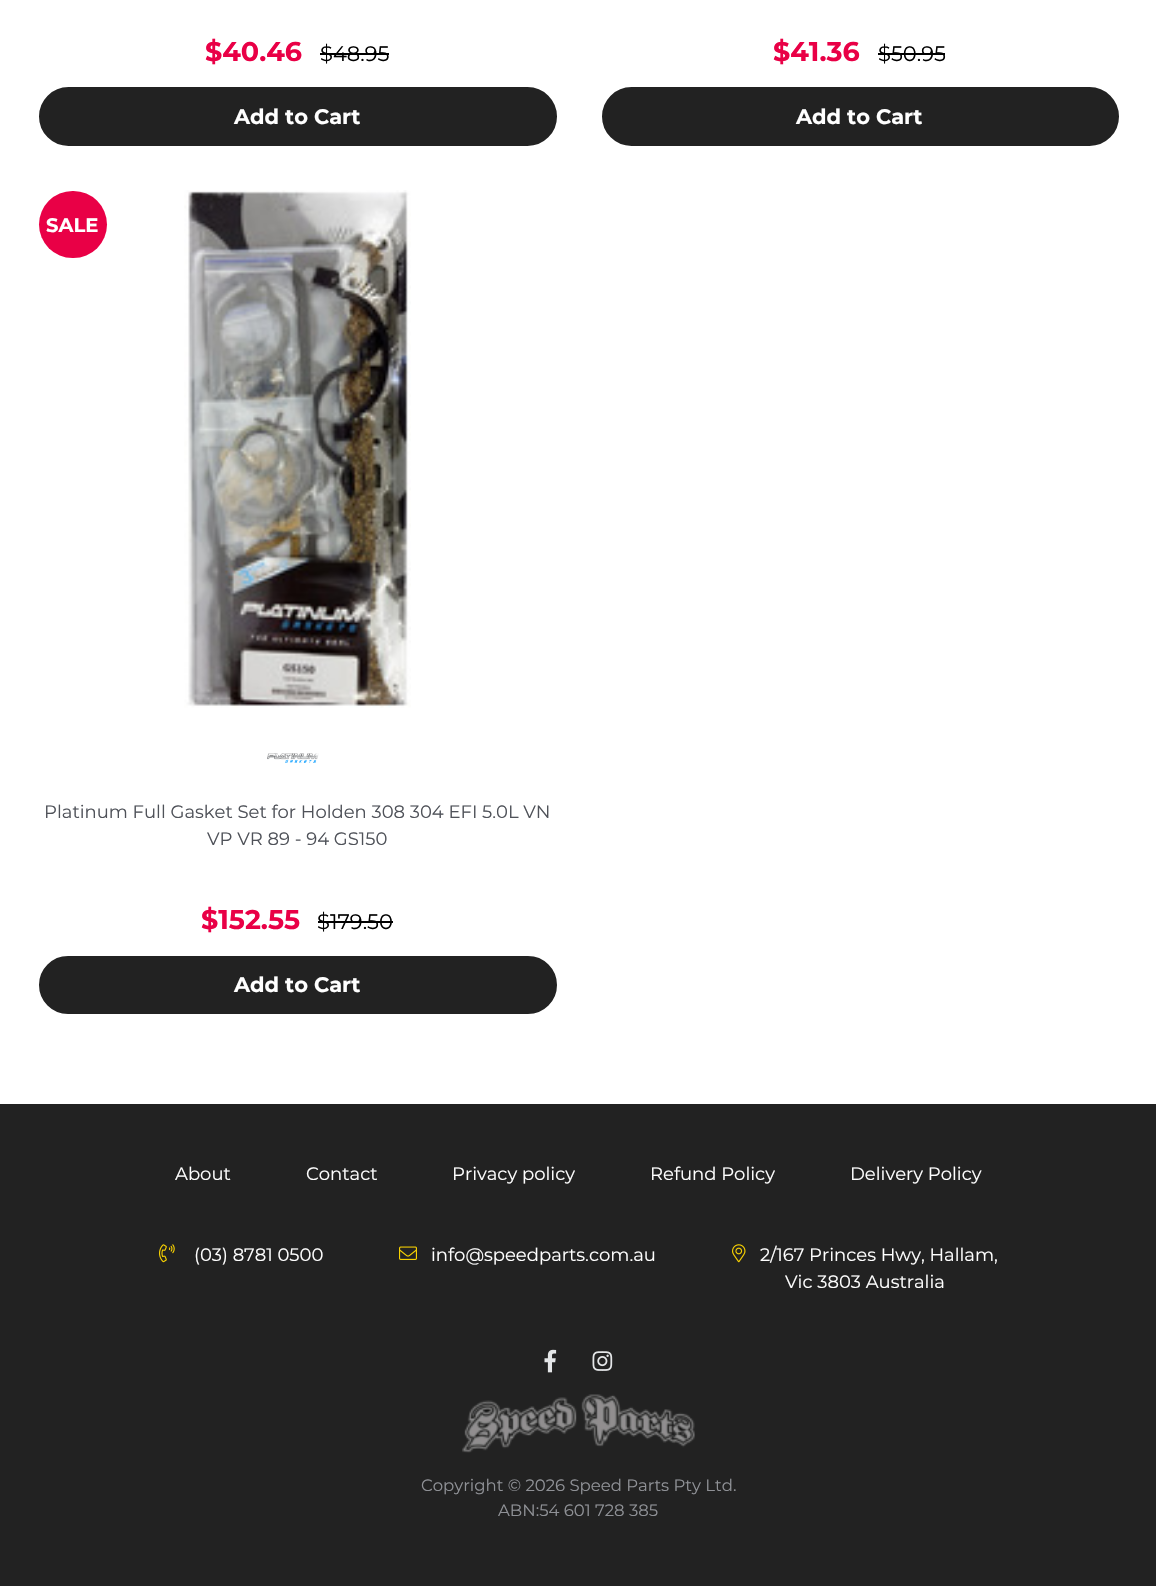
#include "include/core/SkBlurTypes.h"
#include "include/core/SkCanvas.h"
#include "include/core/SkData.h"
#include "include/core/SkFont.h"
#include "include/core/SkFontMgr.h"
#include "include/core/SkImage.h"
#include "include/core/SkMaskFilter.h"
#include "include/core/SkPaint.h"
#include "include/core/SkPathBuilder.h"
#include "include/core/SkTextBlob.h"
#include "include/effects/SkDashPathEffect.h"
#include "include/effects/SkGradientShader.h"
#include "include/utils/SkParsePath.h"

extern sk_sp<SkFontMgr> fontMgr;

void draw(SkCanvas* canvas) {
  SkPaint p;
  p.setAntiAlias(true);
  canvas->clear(SK_ColorWHITE);
  p.setColor(SK_ColorBLACK);
  canvas->drawRect(SkRect::MakeLTRB(320, 53, 389, 55), p);
  p.setColor(SkColorSetRGB(34, 34, 34));
  canvas->drawRoundRect(SkRect::MakeLTRB(40, 88, 556, 145), 28.5f, 28.5f, p);
  p.setStyle(SkPaint::kStroke_Style);
  p.setStrokeWidth(2);
  canvas->drawRoundRect(SkRect::MakeLTRB(40, 88, 556, 145), 28.5f, 28.5f, p);
  p.setStyle(SkPaint::kFill_Style);
  p.setColor(SK_ColorBLACK);
  canvas->drawRect(SkRect::MakeLTRB(878, 53, 945, 55), p);
  p.setColor(SkColorSetRGB(34, 34, 34));
  canvas->drawRoundRect(SkRect::MakeLTRB(603, 88, 1118, 145), 28.5f, 28.5f, p);
  p.setStyle(SkPaint::kStroke_Style);
  canvas->drawRoundRect(SkRect::MakeLTRB(603, 88, 1118, 145), 28.5f, 28.5f, p);
  p.setStyle(SkPaint::kFill_Style);
  p.setColor(SkColorSetRGB(233, 0, 70));
  canvas->drawRoundRect(SkRect::MakeLTRB(39, 191, 107, 258), 33.5f, 33.5f, p);
  canvas->drawImageRect(SkImages::DeferredFromEncodedData(SkData::MakeFromFileName("images/1.png")), SkRect::MakeLTRB(184, 190, 411, 708), SkSamplingOptions());
  canvas->drawImageRect(SkImages::DeferredFromEncodedData(SkData::MakeFromFileName("images/2.png")), SkRect::MakeLTRB(267, 753, 319, 763), SkSamplingOptions());
  p.setColor(SK_ColorBLACK);
  canvas->drawRect(SkRect::MakeLTRB(318, 921, 393, 923), p);
  p.setColor(SkColorSetRGB(34, 34, 34));
  canvas->drawRoundRect(SkRect::MakeLTRB(40, 957, 556, 1013), 28, 28, p);
  p.setStyle(SkPaint::kStroke_Style);
  canvas->drawRoundRect(SkRect::MakeLTRB(40, 957, 556, 1013), 28, 28, p);
  p.setStyle(SkPaint::kFill_Style);
  canvas->drawRect(SkRect::MakeLTRB(0, 1104, 1156, 1586), p);
  canvas->drawImageRect(SkImages::DeferredFromEncodedData(SkData::MakeFromFileName("images/3.png")), SkRect::MakeLTRB(159, 1244, 175, 1263), SkSamplingOptions());
  canvas->drawImageRect(SkImages::DeferredFromEncodedData(SkData::MakeFromFileName("images/4.png")), SkRect::MakeLTRB(399, 1246, 417, 1260), SkSamplingOptions());
  canvas->drawImageRect(SkImages::DeferredFromEncodedData(SkData::MakeFromFileName("images/5.png")), SkRect::MakeLTRB(732, 1244, 746, 1263), SkSamplingOptions());
  canvas->drawImageRect(SkImages::DeferredFromEncodedData(SkData::MakeFromFileName("images/6.png")), SkRect::MakeLTRB(544, 1349, 557, 1373), SkSamplingOptions());
  canvas->drawImageRect(SkImages::DeferredFromEncodedData(SkData::MakeFromFileName("images/7.png")), SkRect::MakeLTRB(592, 1351, 613, 1371), SkSamplingOptions());
  canvas->drawImageRect(SkImages::DeferredFromEncodedData(SkData::MakeFromFileName("images/8.png")), SkRect::MakeLTRB(462, 1394, 695, 1453), SkSamplingOptions());
  SkFont font1(fontMgr->matchFamilyStyle("Montserrat", SkFontStyle::Bold()), 27);
  font1.setSubpixel(true);
  p.setColor(SkColorSetRGB(233, 0, 70));
  canvas->drawString("$40.46", 205, 61, font1, p);
  SkFont font2(fontMgr->matchFamilyStyle("Montserrat", SkFontStyle::Normal()), 21);
  font2.setSubpixel(true);
  p.setColor(SK_ColorBLACK);
  canvas->drawString("$48.95", 320, 61, font2, p);
  SkFont font3(fontMgr->matchFamilyStyle("Montserrat", SkFontStyle::Bold()), 21);
  font3.setSubpixel(true);
  p.setColor(SK_ColorWHITE);
  canvas->drawString("Add to Cart", 234, 124, font3, p);
  p.setColor(SkColorSetRGB(233, 0, 70));
  canvas->drawString("$41.36", 773, 61, font1, p);
  p.setColor(SK_ColorBLACK);
  canvas->drawString("$50.95", 878, 61, font2, p);
  p.setColor(SK_ColorWHITE);
  canvas->drawString("Add to Cart", 796, 124, font3, p);
  SkFont font4(fontMgr->matchFamilyStyle("Montserrat", SkFontStyle::Bold()), 19.5f);
  font4.setSubpixel(true);
  canvas->drawString("SALE", 46, 232, font4, p);
  SkFont font5(fontMgr->matchFamilyStyle("Montserrat", SkFontStyle::Normal()), 18);
  font5.setSubpixel(true);
  p.setColor(SkColorSetRGB(79, 82, 89));
  canvas->drawString("Platinum Full Gasket Set for Holden 308 304 EFI 5.0L VN", 44, 818, font5, p);
  canvas->drawString("VP VR 89 - 94 GS150", 207, 845, font5, p);
  p.setColor(SkColorSetRGB(233, 0, 70));
  canvas->drawString("$152.55", 201, 929, font1, p);
  p.setColor(SK_ColorBLACK);
  canvas->drawString("$179.50", 317, 929, font2, p);
  p.setColor(SK_ColorWHITE);
  canvas->drawString("Add to Cart", 234, 992, font3, p);
  canvas->drawString("About", 175, 1180, font5, p);
  canvas->drawString("Contact", 306, 1180, font5, p);
  canvas->drawString("Privacy policy", 452, 1180, font5, p);
  canvas->drawString("Refund Policy", 650, 1180, font5, p);
  canvas->drawString("Delivery Policy", 850, 1180, font5, p);
  canvas->drawString("(03) 8781 0500", 194, 1261, font5, p);
  canvas->drawString("info@speedparts.com.au", 431, 1261, font5, p);
  canvas->drawString("2/167 Princes Hwy, Hallam,", 760, 1261, font5, p);
  canvas->drawString("Vic 3803 Australia", 785, 1288, font5, p);
  SkFont font6(fontMgr->matchFamilyStyle("Montserrat", SkFontStyle::Normal()), 16.5f);
  font6.setSubpixel(true);
  p.setColor(SkColorSetRGB(143, 145, 150));
  canvas->drawString("Copyright © 2026 Speed Parts Pty Ltd.", 421, 1491, font6, p);
  canvas->drawString("ABN:54 601 728 385", 498, 1516, font6, p);
}
